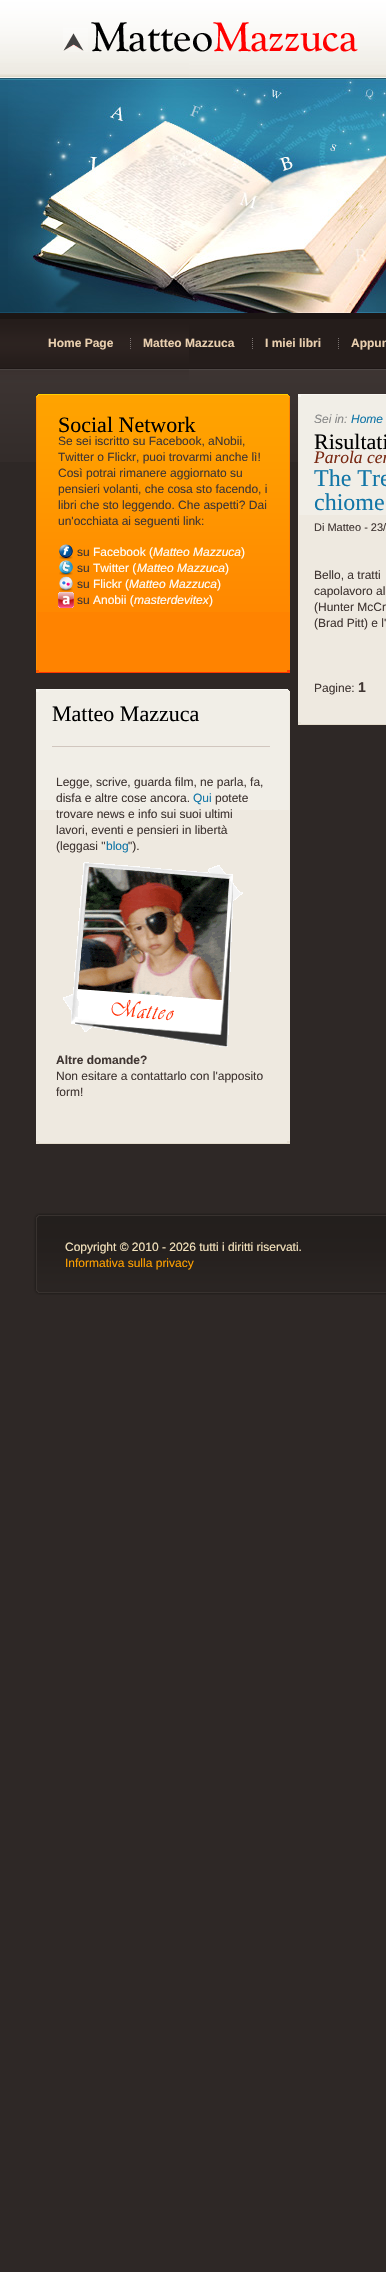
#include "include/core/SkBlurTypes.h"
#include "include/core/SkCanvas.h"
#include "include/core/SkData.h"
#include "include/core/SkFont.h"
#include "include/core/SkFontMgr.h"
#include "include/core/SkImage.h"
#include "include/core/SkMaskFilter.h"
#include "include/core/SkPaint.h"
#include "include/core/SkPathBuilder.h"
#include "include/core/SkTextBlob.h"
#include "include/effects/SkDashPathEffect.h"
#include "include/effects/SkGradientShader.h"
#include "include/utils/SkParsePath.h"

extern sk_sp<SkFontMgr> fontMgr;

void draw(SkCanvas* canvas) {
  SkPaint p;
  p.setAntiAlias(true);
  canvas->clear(SkColorSetRGB(46, 40, 38));
  canvas->drawImageRect(SkImages::DeferredFromEncodedData(SkData::MakeFromFileName("images/1.png")), SkRect::MakeLTRB(0, 0, 189, 462), SkSamplingOptions());
  canvas->drawImageRect(SkImages::DeferredFromEncodedData(SkData::MakeFromFileName("images/2.png")), SkRect::MakeLTRB(189, 0, 386, 462), SkSamplingOptions());
  canvas->drawImageRect(SkImages::DeferredFromEncodedData(SkData::MakeFromFileName("images/3.png")), SkRect::MakeLTRB(63, 22, 358, 52), SkSamplingOptions());
  canvas->drawImageRect(SkImages::DeferredFromEncodedData(SkData::MakeFromFileName("images/4.png")), SkRect::MakeLTRB(8, 79, 386, 313), SkSamplingOptions());
  canvas->drawImageRect(SkImages::DeferredFromEncodedData(SkData::MakeFromFileName("images/5.png")), SkRect::MakeLTRB(130, 338, 131, 349), SkSamplingOptions());
  canvas->drawImageRect(SkImages::DeferredFromEncodedData(SkData::MakeFromFileName("images/6.png")), SkRect::MakeLTRB(252, 338, 253, 349), SkSamplingOptions());
  canvas->drawImageRect(SkImages::DeferredFromEncodedData(SkData::MakeFromFileName("images/6.png")), SkRect::MakeLTRB(338, 338, 339, 349), SkSamplingOptions());
  p.setColor(SkColorSetRGB(255, 131, 0));
  canvas->drawRect(SkRect::MakeLTRB(37, 612, 290, 672), p);
  canvas->drawImageRect(SkImages::DeferredFromEncodedData(SkData::MakeFromFileName("images/7.png")), SkRect::MakeLTRB(37, 394, 290, 612), SkSamplingOptions());
  p.setColor(SkColorSetRGB(255, 133, 0));
  canvas->drawRect(SkRect::MakeLTRB(289, 394, 290, 596), p);
  p.setColor(SkColorSetRGB(255, 53, 0));
  canvas->drawRect(SkRect::MakeLTRB(36, 672, 290, 673), p);
  p.setColor(SkColorSetRGB(255, 143, 0));
  canvas->drawRect(SkRect::MakeLTRB(36, 394, 37, 673), p);
  canvas->drawImageRect(SkImages::DeferredFromEncodedData(SkData::MakeFromFileName("images/8.png")), SkRect::MakeLTRB(36, 394, 39, 398), SkSamplingOptions());
  canvas->drawImageRect(SkImages::DeferredFromEncodedData(SkData::MakeFromFileName("images/9.png")), SkRect::MakeLTRB(287, 394, 290, 398), SkSamplingOptions());
  p.setColor(SkColorSetRGB(255, 62, 0));
  canvas->drawRect(SkRect::MakeLTRB(287, 670, 290, 673), p);
  p.setColor(SkColorSetRGB(255, 90, 0));
  canvas->drawRect(SkRect::MakeLTRB(36, 670, 39, 673), p);
  canvas->drawImageRect(SkImages::DeferredFromEncodedData(SkData::MakeFromFileName("images/10.png")), SkRect::MakeLTRB(59, 544, 73, 560), SkSamplingOptions());
  canvas->drawImageRect(SkImages::DeferredFromEncodedData(SkData::MakeFromFileName("images/11.png")), SkRect::MakeLTRB(59, 560, 73, 576), SkSamplingOptions());
  canvas->drawImageRect(SkImages::DeferredFromEncodedData(SkData::MakeFromFileName("images/12.png")), SkRect::MakeLTRB(59, 576, 73, 592), SkSamplingOptions());
  canvas->drawImageRect(SkImages::DeferredFromEncodedData(SkData::MakeFromFileName("images/13.png")), SkRect::MakeLTRB(58, 592, 74, 608), SkSamplingOptions());
  p.setColor(SkColorSetRGB(238, 233, 224));
  canvas->drawRect(SkRect::MakeLTRB(37, 810, 290, 1143), p);
  p.setColor(SkColorSetRGB(241, 238, 231));
  canvas->drawRect(SkRect::MakeLTRB(37, 690, 289, 810), p);
  p.setColor(SkColorSetRGB(248, 247, 243));
  canvas->drawRect(SkRect::MakeLTRB(36, 689, 290, 690), p);
  p.setColor(SkColorSetRGB(239, 235, 226));
  canvas->drawRect(SkRect::MakeLTRB(289, 689, 290, 810), p);
  p.setColor(SkColorSetRGB(227, 219, 204));
  canvas->drawRect(SkRect::MakeLTRB(36, 1143, 290, 1144), p);
  p.setColor(SkColorSetRGB(239, 235, 227));
  canvas->drawRect(SkRect::MakeLTRB(36, 689, 37, 1144), p);
  p.setColor(SkColorSetRGB(247, 246, 242));
  canvas->drawRect(SkRect::MakeLTRB(36, 689, 39, 692), p);
  canvas->drawImageRect(SkImages::DeferredFromEncodedData(SkData::MakeFromFileName("images/14.png")), SkRect::MakeLTRB(288, 689, 290, 691), SkSamplingOptions());
  p.setColor(SkColorSetRGB(229, 221, 207));
  canvas->drawRect(SkRect::MakeLTRB(287, 1141, 290, 1144), p);
  p.setColor(SkColorSetRGB(232, 226, 214));
  canvas->drawRect(SkRect::MakeLTRB(36, 1141, 39, 1144), p);
  p.setColor(SkColorSetRGB(209, 198, 190));
  canvas->drawRect(SkRect::MakeLTRB(52, 746, 270, 747), p);
  canvas->drawImageRect(SkImages::DeferredFromEncodedData(SkData::MakeFromFileName("images/15.png")), SkRect::MakeLTRB(63, 862, 243, 1047), SkSamplingOptions());
  p.setColor(SkColorSetRGB(238, 233, 224));
  canvas->drawRect(SkRect::MakeLTRB(299, 515, 386, 724), p);
  p.setColor(SkColorSetRGB(241, 238, 231));
  canvas->drawRect(SkRect::MakeLTRB(299, 395, 386, 515), p);
  p.setColor(SkColorSetRGB(248, 247, 243));
  canvas->drawRect(SkRect::MakeLTRB(298, 394, 386, 395), p);
  p.setColor(SkColorSetRGB(227, 219, 204));
  canvas->drawRect(SkRect::MakeLTRB(298, 724, 386, 725), p);
  p.setColor(SkColorSetRGB(239, 235, 227));
  canvas->drawRect(SkRect::MakeLTRB(298, 394, 299, 725), p);
  p.setColor(SkColorSetRGB(247, 246, 242));
  canvas->drawRect(SkRect::MakeLTRB(298, 394, 301, 397), p);
  p.setColor(SkColorSetRGB(232, 226, 214));
  canvas->drawRect(SkRect::MakeLTRB(298, 722, 301, 725), p);
  canvas->drawImageRect(SkImages::DeferredFromEncodedData(SkData::MakeFromFileName("images/16.png")), SkRect::MakeLTRB(39, 1213, 386, 1295), SkSamplingOptions());
  canvas->drawImageRect(SkImages::DeferredFromEncodedData(SkData::MakeFromFileName("images/17.png")), SkRect::MakeLTRB(33, 1213, 39, 1295), SkSamplingOptions());
  SkFont font1(fontMgr->matchFamilyStyle("Liberation Sans", SkFontStyle::Bold()), 12);
  font1.setSubpixel(true);
  p.setColor(SkColorSetRGB(233, 207, 175));
  canvas->drawString("Home Page", 48, 347, font1, p);
  canvas->drawString("Matteo Mazzuca", 143, 347, font1, p);
  canvas->drawString("I miei libri", 265, 347, font1, p);
  canvas->drawString("Appun", 351, 347, font1, p);
  SkFont font2(fontMgr->matchFamilyStyle("Liberation Serif", SkFontStyle::Normal()), 22);
  font2.setSubpixel(true);
  p.setColor(SK_ColorBLACK);
  canvas->drawString("Social Network", 58, 432, font2, p);
  SkFont font3(fontMgr->matchFamilyStyle("Liberation Sans", SkFontStyle::Normal()), 12);
  font3.setSubpixel(true);
  p.setColor(SkColorSetRGB(64, 54, 51));
  canvas->drawString("Se sei iscritto su Facebook, aNobii,", 58, 445, font3, p);
  canvas->drawString("Twitter o Flickr, puoi trovarmi anche lì!", 58, 461, font3, p);
  canvas->drawString("Così potrai rimanere aggiornato su", 58, 477, font3, p);
  canvas->drawString("pensieri volanti, che cosa sto facendo, i", 58, 493, font3, p);
  canvas->drawString("libri che sto leggendo. Che aspetti? Dai", 58, 509, font3, p);
  canvas->drawString("un'occhiata ai seguenti link:", 58, 525, font3, p);
  canvas->drawString("su", 77, 556, font3, p);
  p.setColor(SK_ColorWHITE);
  canvas->drawString("Facebook (", 93, 556, font3, p);
  SkFont font4(fontMgr->matchFamilyStyle("Liberation Sans", SkFontStyle::Italic()), 12);
  font4.setSubpixel(true);
  canvas->drawString("Matteo Mazzuca", 153, 556, font4, p);
  canvas->drawString(")", 241, 556, font3, p);
  p.setColor(SkColorSetRGB(64, 54, 51));
  canvas->drawString("su", 77, 572, font3, p);
  p.setColor(SK_ColorWHITE);
  canvas->drawString("Twitter (", 93, 572, font3, p);
  canvas->drawString("Matteo Mazzuca", 137, 572, font4, p);
  canvas->drawString(")", 225, 572, font3, p);
  p.setColor(SkColorSetRGB(64, 54, 51));
  canvas->drawString("su", 77, 588, font3, p);
  p.setColor(SK_ColorWHITE);
  canvas->drawString("Flickr (", 93, 588, font3, p);
  canvas->drawString("Matteo Mazzuca", 129, 588, font4, p);
  canvas->drawString(")", 217, 588, font3, p);
  canvas->drawString("Anobii (", 93, 604, font3, p);
  canvas->drawString("masterdevitex", 134, 604, font4, p);
  p.setColor(SkColorSetRGB(64, 54, 51));
  canvas->drawString("su", 77, 604, font3, p);
  p.setColor(SK_ColorWHITE);
  canvas->drawString(")", 209, 604, font3, p);
  p.setColor(SK_ColorBLACK);
  canvas->drawString("Matteo Mazzuca", 52, 721, font2, p);
  p.setColor(SkColorSetRGB(64, 54, 51));
  canvas->drawString("Legge, scrive, guarda film, ne parla, fa,", 56, 786, font3, p);
  canvas->drawString("disfa e altre cose ancora.", 56, 802, font3, p);
  p.setColor(SkColorSetRGB(18, 118, 167));
  canvas->drawString("Qui", 193, 802, font3, p);
  p.setColor(SkColorSetRGB(64, 54, 51));
  canvas->drawString("potete", 215, 802, font3, p);
  canvas->drawString("trovare news e info sui suoi ultimi", 56, 818, font3, p);
  canvas->drawString("lavori, eventi e pensieri in libertà", 56, 834, font3, p);
  canvas->drawString("(leggasi \"", 56, 850, font3, p);
  p.setColor(SkColorSetRGB(18, 118, 167));
  canvas->drawString("blog", 106, 850, font3, p);
  p.setColor(SkColorSetRGB(64, 54, 51));
  canvas->drawString("\").", 128, 850, font3, p);
  canvas->drawString("Altre domande?", 56, 1064, font1, p);
  canvas->drawString("Non esitare a contattarlo con l'apposito", 56, 1080, font3, p);
  canvas->drawString("form!", 56, 1096, font3, p);
  p.setColor(SkColorSetRGB(136, 136, 136));
  canvas->drawString("Sei in:", 314, 423, font4, p);
  p.setColor(SkColorSetRGB(18, 118, 167));
  canvas->drawString("Home", 351, 423, font4, p);
  p.setColor(SK_ColorBLACK);
  canvas->drawString("Risultati", 314, 449, font2, p);
  SkFont font5(fontMgr->matchFamilyStyle("Liberation Serif", SkFontStyle::Italic()), 17.5f);
  font5.setSubpixel(true);
  p.setColor(SkColorSetRGB(121, 41, 19));
  canvas->drawString("Parola cer", 314, 463, font5, p);
  SkFont font6(fontMgr->matchFamilyStyle("Liberation Serif", SkFontStyle::Normal()), 24);
  font6.setSubpixel(true);
  p.setColor(SkColorSetRGB(18, 118, 167));
  canvas->drawString("The Tre", 314, 486, font6, p);
  canvas->drawString("chiome", 314, 510, font6, p);
  SkFont font7(fontMgr->matchFamilyStyle("Liberation Sans", SkFontStyle::Normal()), 11);
  font7.setSubpixel(true);
  p.setColor(SkColorSetRGB(64, 54, 51));
  canvas->drawString("Di Matteo - 23/", 314, 531, font7, p);
  canvas->drawString("Bello, a tratti", 314, 579, font3, p);
  canvas->drawString("capolavoro al", 314, 595, font3, p);
  canvas->drawString("(Hunter McCr", 314, 611, font3, p);
  canvas->drawString("(Brad Pitt) e l'", 314, 627, font3, p);
  canvas->drawString("Pagine:", 314, 692, font3, p);
  SkFont font8(fontMgr->matchFamilyStyle("Liberation Sans", SkFontStyle::Bold()), 14);
  font8.setSubpixel(true);
  canvas->drawString("1", 358, 692, font8, p);
  p.setColor(SkColorSetRGB(243, 226, 188));
  canvas->drawString("Copyright © 2010 - 2026 tutti i diritti riservati.", 65, 1251, font3, p);
  p.setColor(SkColorSetRGB(255, 161, 0));
  canvas->drawString("Informativa sulla privacy", 65, 1267, font3, p);
}
